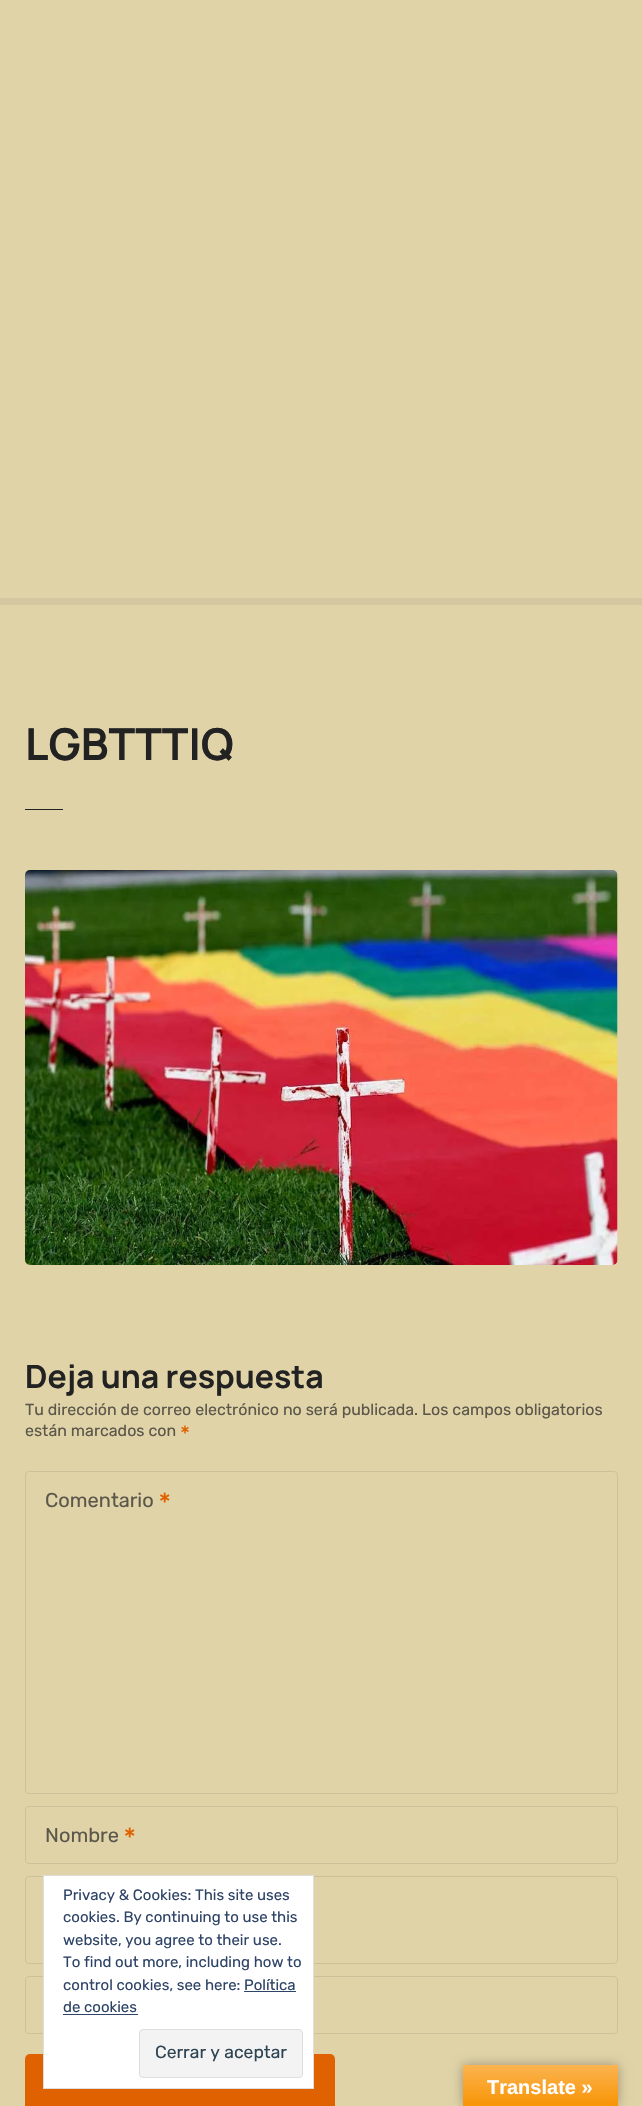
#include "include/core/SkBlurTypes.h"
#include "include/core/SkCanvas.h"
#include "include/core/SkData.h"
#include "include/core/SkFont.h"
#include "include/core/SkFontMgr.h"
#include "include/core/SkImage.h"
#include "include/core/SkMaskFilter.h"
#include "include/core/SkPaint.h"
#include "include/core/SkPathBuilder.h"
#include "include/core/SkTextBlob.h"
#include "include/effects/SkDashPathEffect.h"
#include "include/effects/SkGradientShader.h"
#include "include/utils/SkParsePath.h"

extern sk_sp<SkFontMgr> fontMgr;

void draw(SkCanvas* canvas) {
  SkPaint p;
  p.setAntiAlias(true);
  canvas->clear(SkColorSetRGB(224, 211, 168));
  p.setColor(SkColorSetRGB(213, 200, 160));
  canvas->drawRect(SkRect::MakeLTRB(0, 598, 642, 605), p);
  p.setColor(SkColorSetRGB(34, 34, 34));
  canvas->drawRect(SkRect::MakeLTRB(25, 809, 63, 810), p);
  canvas->drawImageRect(SkImages::DeferredFromEncodedData(SkData::MakeFromFileName("images/1.png")), SkRect::MakeLTRB(25, 870, 618, 1265), SkSamplingOptions());
  canvas->drawImageRect(SkImages::DeferredFromEncodedData(SkData::MakeFromFileName("images/2.png")), SkRect::MakeLTRB(181, 1425, 189, 1434), SkSamplingOptions());
  p.setStyle(SkPaint::kStroke_Style);
  p.setStrokeWidth(1);
  p.setColor(SkColorSetRGB(205, 193, 155));
  canvas->drawRoundRect(SkRect::MakeLTRB(25.5f, 1471.5f, 617.5f, 1793.5f), 3.5f, 3.5f, p);
  canvas->drawImageRect(SkImages::DeferredFromEncodedData(SkData::MakeFromFileName("images/3.png")), SkRect::MakeLTRB(160, 1492, 170, 1503), SkSamplingOptions());
  canvas->drawRoundRect(SkRect::MakeLTRB(25.5f, 1806.5f, 617.5f, 1863.5f), 3.5f, 3.5f, p);
  canvas->drawImageRect(SkImages::DeferredFromEncodedData(SkData::MakeFromFileName("images/3.png")), SkRect::MakeLTRB(125, 1827, 135, 1838), SkSamplingOptions());
  canvas->drawRoundRect(SkRect::MakeLTRB(25.5f, 1876.5f, 617.5f, 1963.5f), 3.5f, 3.5f, p);
  canvas->drawRoundRect(SkRect::MakeLTRB(25.5f, 1976.5f, 617.5f, 2033.5f), 3.5f, 3.5f, p);
  p.setStyle(SkPaint::kFill_Style);
  p.setColor(SkColorSetRGB(224, 97, 0));
  canvas->drawRoundRect(SkRect::MakeLTRB(25, 2054, 335, 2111), 5, 5, p);
  p.setColor(SK_ColorWHITE);
  canvas->drawRect(SkRect::MakeLTRB(43.5f, 1875.5f, 313.5f, 2088.5f), p);
  p.setStyle(SkPaint::kStroke_Style);
  p.setColor(SkColorSetRGB(222, 222, 222));
  canvas->drawRect(SkRect::MakeLTRB(43.5f, 1875.5f, 313.5f, 2088.5f), p);
  p.setStyle(SkPaint::kFill_Style);
  p.setColor(SkColorSetRGB(46, 68, 103));
  canvas->drawRect(SkRect::MakeLTRB(244, 1991, 296, 1992), p);
  canvas->drawRect(SkRect::MakeLTRB(63, 2014, 138, 2015), p);
  p.setColor(SkColorSetRGB(243, 243, 243));
  canvas->drawRoundRect(SkRect::MakeLTRB(139.5f, 2029.5f, 302.5f, 2077.5f), 3.5f, 3.5f, p);
  p.setStyle(SkPaint::kStroke_Style);
  p.setColor(SkColorSetRGB(222, 222, 222));
  canvas->drawRoundRect(SkRect::MakeLTRB(139.5f, 2029.5f, 302.5f, 2077.5f), 3.5f, 3.5f, p);
  p.setStyle(SkPaint::kFill_Style);
  p.setColor(SkColorSetARGB(77, 0, 0, 0));
  p.setMaskFilter(SkMaskFilter::MakeBlur(kNormal_SkBlurStyle, 5.5f));
  canvas->drawRect(SkRect::MakeLTRB(463, 2065, 618, 2106), p);
  p.setMaskFilter(nullptr);
  {
    const SkColor colors[] = {SkColorSetRGB(251, 180, 80), SkColorSetRGB(248, 148, 6)};
    const float stops[] = {0, 1};
    const SkPoint ends[] = {{540, 2065}, {540, 2106}};
    p.setShader(SkGradientShader::MakeLinear(ends, colors, stops, 2, SkTileMode::kClamp));
    p.setAlpha(255);
  }
  canvas->drawRect(SkRect::MakeLTRB(463, 2065, 618, 2106), p);
  SkFont font1(fontMgr->matchFamilyStyle("Manrope", SkFontStyle::Bold()), 44);
  font1.setSubpixel(true);
  p.setShader(nullptr);
  p.setColor(SkColorSetRGB(34, 34, 34));
  canvas->drawString("LGBTTTIQ", 25, 760, font1, p);
  SkFont font2(fontMgr->matchFamilyStyle("Manrope", SkFontStyle::Bold()), 32);
  font2.setSubpixel(true);
  canvas->drawString("Deja una respuesta", 25, 1388, font2, p);
  SkFont font3(fontMgr->matchFamilyStyle("Rubik", SkFontStyle::Normal()), 16);
  font3.setSubpixel(true);
  p.setColor(SkColorSetRGB(91, 87, 74));
  canvas->drawString("Tu dirección de correo electrónico no será publicada. Los campos obligatorios", 25, 1415, font3, p);
  canvas->drawString("están marcados con", 25, 1436, font3, p);
  SkFont font4(fontMgr->matchFamilyStyle("Rubik", SkFontStyle::Normal()), 20);
  font4.setSubpixel(true);
  canvas->drawString("Comentario", 45, 1507, font4, p);
  canvas->drawString("Nombre", 45, 1842, font4, p);
  SkFont font5(fontMgr->matchFamilyStyle("Rubik", SkFontStyle::Normal()), 15);
  font5.setSubpixel(true);
  p.setColor(SkColorSetRGB(46, 68, 103));
  canvas->drawString("Privacy & Cookies: This site uses", 63, 1900, font5, p);
  canvas->drawString("cookies. By continuing to use this", 63, 1922, font5, p);
  canvas->drawString("website, you agree to their use.", 63, 1945, font5, p);
  canvas->drawString("To find out more, including how to", 63, 1967, font5, p);
  canvas->drawString("control cookies, see here: Política", 63, 1990, font5, p);
  canvas->drawString("de cookies", 63, 2012, font5, p);
  SkFont font6(fontMgr->matchFamilyStyle("Rubik", SkFontStyle::Normal()), 17.5f);
  font6.setSubpixel(true);
  p.setColor(SkColorSetRGB(46, 68, 83));
  canvas->drawString("Cerrar y aceptar", 155, 2058, font6, p);
  SkFont font7(fontMgr->matchFamilyStyle("Liberation Sans", SkFontStyle::Bold()), 20);
  font7.setSubpixel(true);
  p.setColor(SK_ColorWHITE);
  canvas->drawString("Translate »", 487, 2094, font7, p);
}
